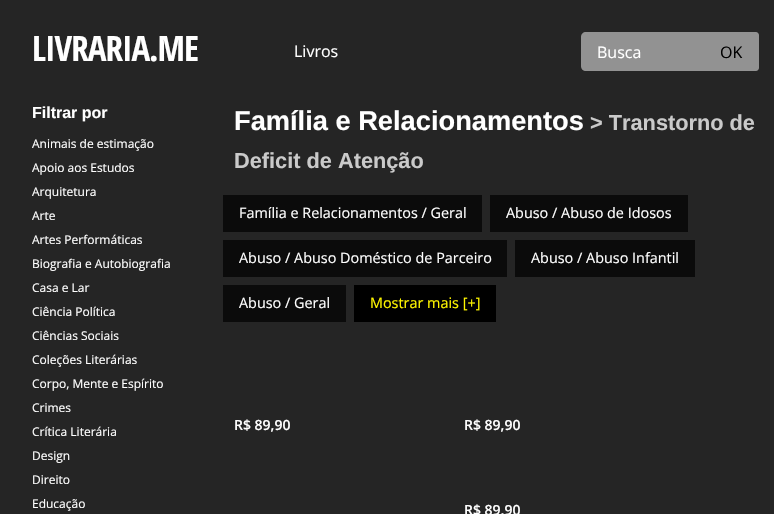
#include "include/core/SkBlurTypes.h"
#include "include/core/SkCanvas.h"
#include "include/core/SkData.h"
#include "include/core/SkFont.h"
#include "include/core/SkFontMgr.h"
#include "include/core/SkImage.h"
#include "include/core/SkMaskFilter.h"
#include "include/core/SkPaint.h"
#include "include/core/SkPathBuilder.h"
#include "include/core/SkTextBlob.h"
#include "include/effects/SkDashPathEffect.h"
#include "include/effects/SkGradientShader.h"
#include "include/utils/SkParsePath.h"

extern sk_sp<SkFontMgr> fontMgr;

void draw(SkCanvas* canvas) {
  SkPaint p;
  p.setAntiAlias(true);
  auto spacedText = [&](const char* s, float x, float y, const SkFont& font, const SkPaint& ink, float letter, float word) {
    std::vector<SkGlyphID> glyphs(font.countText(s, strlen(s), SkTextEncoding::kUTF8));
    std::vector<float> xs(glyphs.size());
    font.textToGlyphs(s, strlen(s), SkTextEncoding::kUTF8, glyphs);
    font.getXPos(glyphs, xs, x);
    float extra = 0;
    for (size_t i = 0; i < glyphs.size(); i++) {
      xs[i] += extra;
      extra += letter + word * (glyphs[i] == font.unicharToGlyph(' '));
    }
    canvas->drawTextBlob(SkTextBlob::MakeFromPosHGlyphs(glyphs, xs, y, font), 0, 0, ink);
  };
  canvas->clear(SkColorSetRGB(37, 37, 37));
  p.setColor(SkColorSetRGB(146, 146, 146));
  canvas->drawPath(SkPathBuilder().moveTo(586, 32).lineTo(703, 32).lineTo(703, 71).lineTo(586, 71).cubicTo(583, 71, 581, 69, 581, 66).lineTo(581, 37).cubicTo(581, 34, 583, 32, 586, 32).close().detach(), p);
  canvas->drawPath(SkPathBuilder().moveTo(703, 32).lineTo(756, 32).cubicTo(757.5f, 32, 759, 33.5f, 759, 35).lineTo(759, 68).cubicTo(759, 69.5f, 757.5f, 71, 756, 71).lineTo(703, 71).close().detach(), p);
  p.setColor(SkColorSetRGB(11, 11, 11));
  canvas->drawRect(SkRect::MakeLTRB(223, 195, 482, 232), p);
  canvas->drawRect(SkRect::MakeLTRB(490, 195, 688, 232), p);
  canvas->drawRect(SkRect::MakeLTRB(223, 240, 507, 277), p);
  canvas->drawRect(SkRect::MakeLTRB(515, 240, 695, 277), p);
  canvas->drawRect(SkRect::MakeLTRB(223, 285, 346, 322), p);
  p.setColor(SK_ColorBLACK);
  canvas->drawRect(SkRect::MakeLTRB(354, 285, 496, 322), p);
  SkFont font1(fontMgr->matchFamilyStyle("Open Sans Condensed", SkFontStyle::Bold()), 35);
  font1.setSubpixel(true);
  p.setColor(SK_ColorWHITE);
  spacedText("LIVRARIA.ME", 32, 61, font1, p, -1, 0);
  SkFont font2(fontMgr->matchFamilyStyle("Open Sans", SkFontStyle::Normal()), 16);
  font2.setSubpixel(true);
  canvas->drawString("Livros", 294, 57, font2, p);
  canvas->drawString("Busca", 597, 58, font2, p);
  p.setColor(SK_ColorBLACK);
  canvas->drawString("OK", 720, 58, font2, p);
  SkFont font3(fontMgr->matchFamilyStyle("Liberation Sans", SkFontStyle::Bold()), 16);
  font3.setSubpixel(true);
  p.setColor(SK_ColorWHITE);
  canvas->drawString("Filtrar por", 32, 118, font3, p);
  SkFont font4(fontMgr->matchFamilyStyle("Open Sans", SkFontStyle::Normal()), 12);
  font4.setSubpixel(true);
  canvas->drawString("Animais de estimação", 32, 148, font4, p);
  canvas->drawString("Apoio aos Estudos", 32, 172, font4, p);
  canvas->drawString("Arquitetura", 32, 196, font4, p);
  canvas->drawString("Arte", 32, 220, font4, p);
  canvas->drawString("Artes Performáticas", 32, 244, font4, p);
  canvas->drawString("Biografia e Autobiografia", 32, 268, font4, p);
  canvas->drawString("Casa e Lar", 32, 292, font4, p);
  canvas->drawString("Ciência Política", 32, 316, font4, p);
  canvas->drawString("Ciências Sociais", 32, 340, font4, p);
  canvas->drawString("Coleções Literárias", 32, 364, font4, p);
  canvas->drawString("Corpo, Mente e Espírito", 32, 388, font4, p);
  canvas->drawString("Crimes", 32, 412, font4, p);
  canvas->drawString("Crítica Literária", 32, 436, font4, p);
  canvas->drawString("Design", 32, 460, font4, p);
  canvas->drawString("Direito", 32, 484, font4, p);
  canvas->drawString("Educação", 32, 508, font4, p);
  SkFont font5(fontMgr->matchFamilyStyle("Liberation Sans", SkFontStyle::Bold()), 27.25f);
  font5.setSubpixel(true);
  canvas->drawString("Família e Relacionamentos", 234, 130, font5, p);
  SkFont font6(fontMgr->matchFamilyStyle("Liberation Sans", SkFontStyle::Bold()), 21.75f);
  font6.setSubpixel(true);
  p.setColor(SkColorSetRGB(202, 202, 202));
  canvas->drawString("> Transtorno de", 590, 130, font6, p);
  canvas->drawString("Deficit de Atenção", 234, 168, font6, p);
  SkFont font7(fontMgr->matchFamilyStyle("Open Sans", SkFontStyle::Normal()), 14.4f);
  font7.setSubpixel(true);
  p.setColor(SK_ColorWHITE);
  canvas->drawString("Família e Relacionamentos / Geral", 239, 218, font7, p);
  canvas->drawString("Abuso / Abuso de Idosos", 506, 218, font7, p);
  canvas->drawString("Abuso / Abuso Doméstico de Parceiro", 239, 263, font7, p);
  canvas->drawString("Abuso / Abuso Infantil", 531, 263, font7, p);
  canvas->drawString("Abuso / Geral", 239, 308, font7, p);
  p.setColor(SkColorSetRGB(255, 246, 0));
  canvas->drawString("Mostrar mais [+]", 370, 308, font7, p);
  SkFont font8(fontMgr->matchFamilyStyle("Open Sans", SkFontStyle(600, SkFontStyle::kNormal_Width, SkFontStyle::kUpright_Slant)), 14);
  font8.setSubpixel(true);
  p.setColor(SK_ColorWHITE);
  canvas->drawString("R$ 89,90", 234, 430, font8, p);
  canvas->drawString("R$ 89,90", 464, 430, font8, p);
  canvas->drawString("R$ 89,90", 464, 515, font8, p);
}
